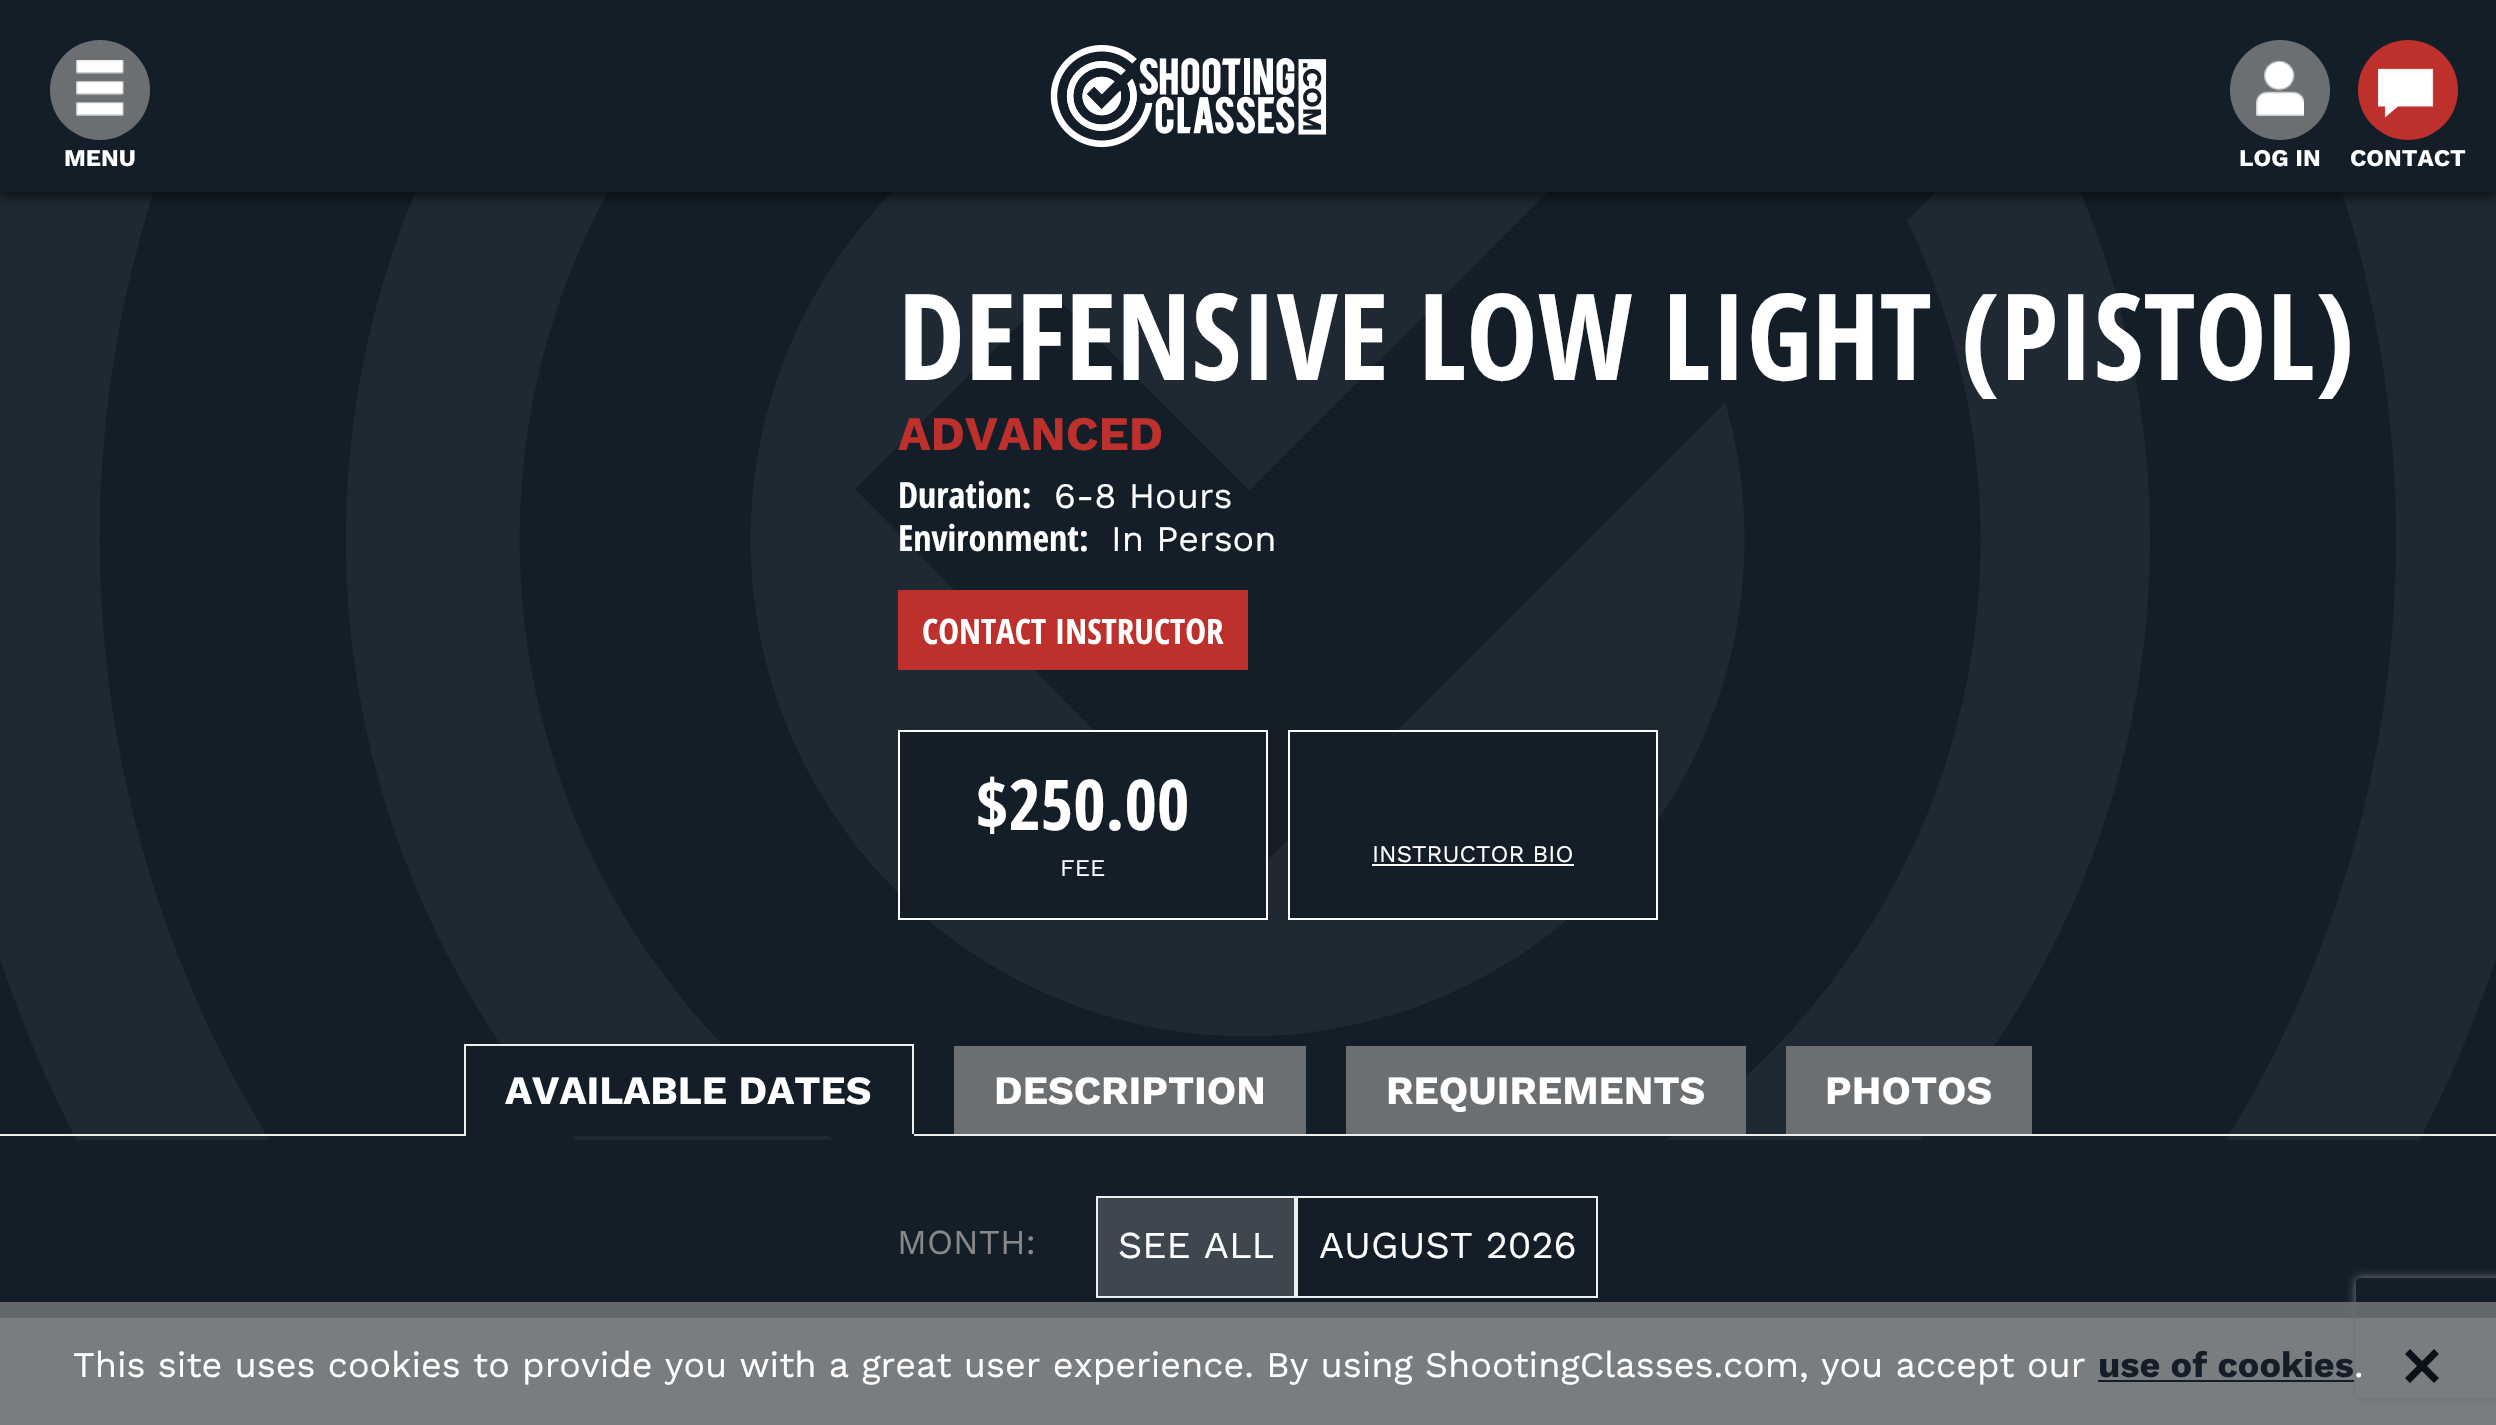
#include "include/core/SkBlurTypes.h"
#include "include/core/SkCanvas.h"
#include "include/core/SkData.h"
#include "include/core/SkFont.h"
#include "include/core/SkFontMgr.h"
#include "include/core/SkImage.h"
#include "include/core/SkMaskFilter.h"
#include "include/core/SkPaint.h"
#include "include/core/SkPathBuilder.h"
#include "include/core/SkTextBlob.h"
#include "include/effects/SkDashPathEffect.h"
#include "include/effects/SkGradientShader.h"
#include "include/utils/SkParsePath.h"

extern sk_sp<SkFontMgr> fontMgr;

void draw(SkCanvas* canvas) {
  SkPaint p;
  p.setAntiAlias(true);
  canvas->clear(SkColorSetRGB(19, 30, 41));
  canvas->drawImageRect(SkImages::DeferredFromEncodedData(SkData::MakeFromFileName("images/5.png")), SkRect::MakeLTRB(0, 192, 2496, 1140), SkSamplingOptions());
  p.setColor(SkColorSetARGB(128, 0, 0, 0));
  p.setMaskFilter(SkMaskFilter::MakeBlur(kNormal_SkBlurStyle, 5));
  canvas->drawRect(SkRect::MakeLTRB(0, 6, 2496, 198), p);
  p.setMaskFilter(nullptr);
  p.setColor(SkColorSetRGB(19, 30, 41));
  canvas->drawRect(SkRect::MakeLTRB(0, 0, 2496, 192), p);
  canvas->drawImageRect(SkImages::DeferredFromEncodedData(SkData::MakeFromFileName("images/1.png")), SkRect::MakeLTRB(1050, 45, 1327, 148), SkSamplingOptions());
  p.setColor(SkColorSetRGB(108, 111, 114));
  canvas->drawCircle(100, 90, 50, p);
  canvas->drawImageRect(SkImages::DeferredFromEncodedData(SkData::MakeFromFileName("images/2.png")), SkRect::MakeLTRB(76, 60, 124, 116), SkSamplingOptions());
  canvas->drawCircle(2280, 90, 50, p);
  canvas->drawImageRect(SkImages::DeferredFromEncodedData(SkData::MakeFromFileName("images/3.png")), SkRect::MakeLTRB(2256, 60, 2304, 116), SkSamplingOptions());
  p.setColor(SkColorSetRGB(189, 48, 44));
  canvas->drawCircle(2408, 90, 50, p);
  canvas->drawImageRect(SkImages::DeferredFromEncodedData(SkData::MakeFromFileName("images/4.png")), SkRect::MakeLTRB(2378, 68, 2434, 118), SkSamplingOptions());
  canvas->drawRect(SkRect::MakeLTRB(898, 590, 1248, 670), p);
  p.setColor(SkColorSetRGB(19, 30, 41));
  canvas->drawRect(SkRect::MakeLTRB(899, 731, 1267, 919), p);
  p.setStyle(SkPaint::kStroke_Style);
  p.setStrokeWidth(2);
  p.setColor(SK_ColorWHITE);
  canvas->drawRect(SkRect::MakeLTRB(899, 731, 1267, 919), p);
  p.setStyle(SkPaint::kFill_Style);
  p.setColor(SkColorSetRGB(19, 30, 41));
  canvas->drawRect(SkRect::MakeLTRB(1289, 731, 1657, 919), p);
  p.setStyle(SkPaint::kStroke_Style);
  p.setColor(SK_ColorWHITE);
  canvas->drawRect(SkRect::MakeLTRB(1289, 731, 1657, 919), p);
  p.setStyle(SkPaint::kFill_Style);
  canvas->drawRect(SkRect::MakeLTRB(1372, 864, 1574, 866), p);
  p.setColor(SkColorSetRGB(238, 238, 238));
  canvas->drawRect(SkRect::MakeLTRB(0, 1134, 2496, 1136), p);
  p.setColor(SkColorSetRGB(19, 30, 41));
  canvas->drawRect(SkRect::MakeLTRB(502, 1046, 825, 1134), p);
  p.setColor(SkColorSetRGB(238, 238, 238));
  canvas->drawRect(SkRect::MakeLTRB(464, 1044, 914, 1046), p);
  canvas->drawRect(SkRect::MakeLTRB(912, 1044, 914, 1136), p);
  p.setColor(SkColorSetRGB(19, 30, 41));
  canvas->drawRect(SkRect::MakeLTRB(464, 1134, 914, 1136), p);
  p.setColor(SkColorSetRGB(238, 238, 238));
  canvas->drawRect(SkRect::MakeLTRB(464, 1044, 466, 1136), p);
  p.setColor(SkColorSetRGB(108, 111, 114));
  canvas->drawRect(SkRect::MakeLTRB(954, 1046, 1306, 1134), p);
  canvas->drawRect(SkRect::MakeLTRB(1346, 1046, 1746, 1134), p);
  canvas->drawRect(SkRect::MakeLTRB(1786, 1046, 2032, 1134), p);
  p.setStyle(SkPaint::kStroke_Style);
  p.setColor(SkColorSetRGB(238, 238, 238));
  canvas->drawRect(SkRect::MakeLTRB(1097, 1197, 1295, 1297), p);
  p.setStyle(SkPaint::kFill_Style);
  p.setColor(SkColorSetRGB(62, 71, 80));
  canvas->drawRect(SkRect::MakeLTRB(1098, 1198, 1294, 1296), p);
  p.setStyle(SkPaint::kStroke_Style);
  p.setColor(SkColorSetRGB(238, 238, 238));
  canvas->drawRect(SkRect::MakeLTRB(1297, 1197, 1597, 1297), p);
  p.setStyle(SkPaint::kFill_Style);
  p.setColor(SK_ColorWHITE);
  canvas->drawRect(SkRect::MakeLTRB(0, 1318, 2496, 1425), p);
  canvas->save();
  canvas->clipPath(SkPathBuilder(SkPathFillType::kEvenOdd).moveTo(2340, 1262).lineTo(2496, 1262).lineTo(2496, 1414).lineTo(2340, 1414).close().moveTo(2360, 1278).lineTo(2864, 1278).cubicTo(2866, 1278, 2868, 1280, 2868, 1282).lineTo(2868, 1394).cubicTo(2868, 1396, 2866, 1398, 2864, 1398).lineTo(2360, 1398).cubicTo(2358, 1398, 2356, 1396, 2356, 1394).lineTo(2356, 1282).cubicTo(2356, 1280, 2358, 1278, 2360, 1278).close().detach(), true);
  p.setColor(SkColorSetRGB(128, 128, 128));
  p.setMaskFilter(SkMaskFilter::MakeBlur(kNormal_SkBlurStyle, 5));
  canvas->drawRoundRect(SkRect::MakeLTRB(2356, 1278, 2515, 1398), 4, 4, p);
  p.setMaskFilter(nullptr);
  canvas->restore();
  p.setColor(SkColorSetARGB(230, 108, 111, 114));
  canvas->drawRect(SkRect::MakeLTRB(0, 1302, 2496, 1425), p);
  p.setColor(SkColorSetRGB(19, 30, 41));
  canvas->drawRect(SkRect::MakeLTRB(2098, 1380, 2354, 1382), p);
  p.setColor(SkColorSetRGB(11, 17, 24));
  canvas->drawPath(SkPathBuilder().moveTo(2434, 1349).lineTo(2422, 1361).lineTo(2410, 1349).lineTo(2405, 1354).lineTo(2417, 1366).lineTo(2405, 1378).lineTo(2410, 1383).lineTo(2422, 1371).lineTo(2434, 1383).lineTo(2439, 1378).lineTo(2427, 1366).lineTo(2439, 1354).close().detach(), p);
  SkFont font1(fontMgr->matchFamilyStyle("Work Sans", SkFontStyle::Bold()), 24);
  font1.setSubpixel(true);
  p.setColor(SK_ColorWHITE);
  canvas->drawString("MENU", 64, 166, font1, p);
  canvas->drawString("LOG IN", 2239, 166, font1, p);
  canvas->drawString("CONTACT", 2350, 166, font1, p);
  SkFont font2(fontMgr->matchFamilyStyle("Open Sans Condensed", SkFontStyle::Bold()), 120);
  font2.setSubpixel(true);
  canvas->drawString("DEFENSIVE LOW LIGHT (PISTOL)", 898, 380, font2, p);
  SkFont font3(fontMgr->matchFamilyStyle("Work Sans", SkFontStyle::Bold()), 48);
  font3.setSubpixel(true);
  p.setColor(SkColorSetRGB(189, 48, 44));
  canvas->drawString("ADVANCED", 898, 450, font3, p);
  SkFont font4(fontMgr->matchFamilyStyle("Open Sans Condensed", SkFontStyle::Bold()), 36);
  font4.setSubpixel(true);
  p.setColor(SK_ColorWHITE);
  canvas->drawString("Duration:", 898, 508, font4, p);
  SkFont font5(fontMgr->matchFamilyStyle("Work Sans", SkFontStyle::Normal()), 36);
  font5.setSubpixel(true);
  canvas->drawString("6-8 Hours", 1054, 508, font5, p);
  canvas->drawString("Environment:", 898, 551, font4, p);
  canvas->drawString("In Person", 1111, 551, font5, p);
  SkFont font6(fontMgr->matchFamilyStyle("Open Sans Condensed", SkFontStyle::Bold()), 35);
  font6.setSubpixel(true);
  canvas->drawString("CONTACT INSTRUCTOR", 922, 644, font6, p);
  SkFont font7(fontMgr->matchFamilyStyle("Open Sans Condensed", SkFontStyle::Bold()), 70);
  font7.setSubpixel(true);
  canvas->drawString("$250.00", 976, 830, font7, p);
  SkFont font8(fontMgr->matchFamilyStyle("Work Sans", SkFontStyle::Normal()), 24);
  font8.setSubpixel(true);
  canvas->drawString("FEE", 1060, 876, font8, p);
  canvas->drawString("INSTRUCTOR BIO", 1372, 862, font8, p);
  SkFont font9(fontMgr->matchFamilyStyle("Work Sans", SkFontStyle::Bold()), 40);
  font9.setSubpixel(true);
  canvas->drawString("AVAILABLE DATES", 505, 1104, font9, p);
  canvas->drawString("DESCRIPTION", 994, 1104, font9, p);
  canvas->drawString("REQUIREMENTS", 1386, 1104, font9, p);
  canvas->drawString("PHOTOS", 1825, 1104, font9, p);
  SkFont font10(fontMgr->matchFamilyStyle("Work Sans", SkFontStyle::Normal()), 35);
  font10.setSubpixel(true);
  p.setColor(SkColorSetRGB(136, 136, 136));
  canvas->drawString("MONTH:", 897, 1254, font10, p);
  SkFont font11(fontMgr->matchFamilyStyle("Work Sans", SkFontStyle::Normal()), 38);
  font11.setSubpixel(true);
  p.setColor(SK_ColorWHITE);
  canvas->drawString("SEE ALL", 1118, 1258, font11, p);
  canvas->drawString("AUGUST 2026", 1319, 1258, font11, p);
  canvas->drawString("This site uses cookies to provide you with a great user experience. By using ShootingClasses.com, you accept our", 73, 1377, font5, p);
  SkFont font12(fontMgr->matchFamilyStyle("Work Sans", SkFontStyle::Bold()), 36);
  font12.setSubpixel(true);
  p.setColor(SkColorSetRGB(19, 30, 41));
  canvas->drawString("use of cookies", 2098, 1377, font12, p);
  p.setColor(SK_ColorWHITE);
  canvas->drawString(".", 2354, 1377, font5, p);
}
